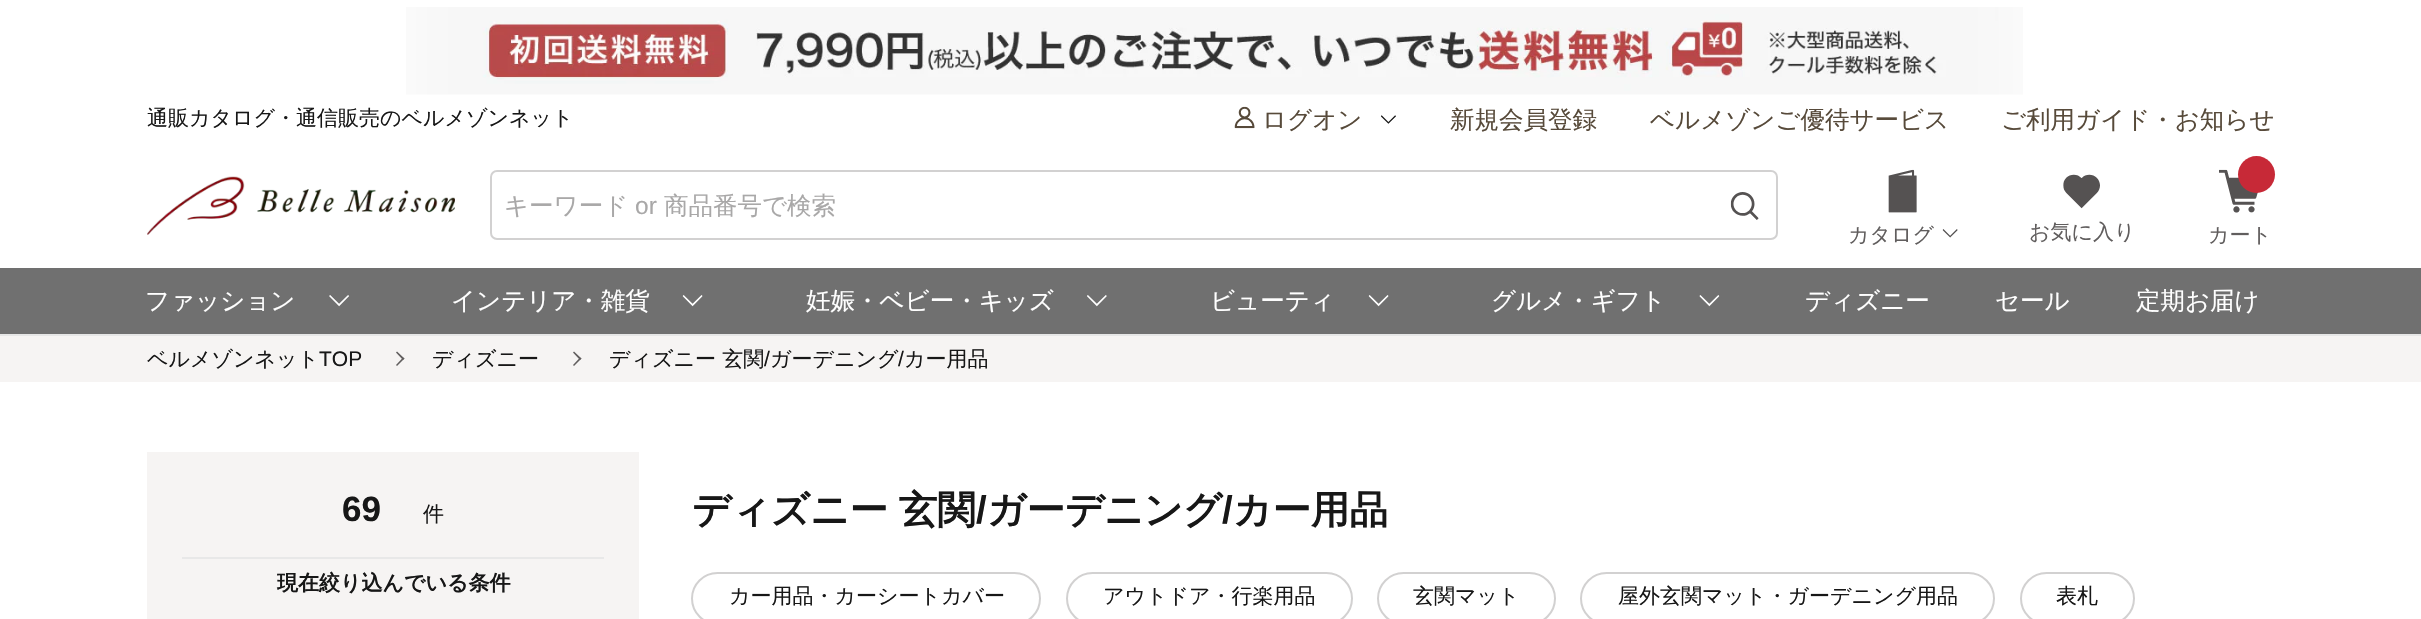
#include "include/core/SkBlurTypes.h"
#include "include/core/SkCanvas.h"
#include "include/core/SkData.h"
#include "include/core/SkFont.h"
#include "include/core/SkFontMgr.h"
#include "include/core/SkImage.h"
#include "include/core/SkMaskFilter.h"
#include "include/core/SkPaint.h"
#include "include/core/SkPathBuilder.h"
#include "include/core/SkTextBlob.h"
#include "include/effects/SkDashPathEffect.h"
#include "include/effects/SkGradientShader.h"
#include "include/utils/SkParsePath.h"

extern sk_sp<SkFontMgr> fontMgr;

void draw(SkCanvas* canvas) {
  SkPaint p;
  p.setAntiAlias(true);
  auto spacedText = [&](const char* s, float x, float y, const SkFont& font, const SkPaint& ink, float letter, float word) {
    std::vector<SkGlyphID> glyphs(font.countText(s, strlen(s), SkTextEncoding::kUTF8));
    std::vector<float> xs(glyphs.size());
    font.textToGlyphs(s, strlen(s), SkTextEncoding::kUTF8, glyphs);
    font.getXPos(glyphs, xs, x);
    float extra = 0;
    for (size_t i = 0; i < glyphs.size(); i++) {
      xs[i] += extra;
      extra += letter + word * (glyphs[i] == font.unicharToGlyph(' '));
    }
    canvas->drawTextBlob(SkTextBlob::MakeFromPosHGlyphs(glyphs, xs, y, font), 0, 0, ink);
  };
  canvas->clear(SK_ColorWHITE);
  p.setColor(SkColorSetRGB(230, 230, 230));
  canvas->drawRect(SkRect::MakeLTRB(0, 334, 2421, 336), p);
  canvas->drawImageRect(SkImages::DeferredFromEncodedData(SkData::MakeFromFileName("images/1.png")), SkRect::MakeLTRB(406, 7, 2023, 95), SkSamplingOptions());
  canvas->drawImageRect(SkImages::DeferredFromEncodedData(SkData::MakeFromFileName("images/2.png")), SkRect::MakeLTRB(1234, 106, 1255, 129), SkSamplingOptions());
  canvas->drawImageRect(SkImages::DeferredFromEncodedData(SkData::MakeFromFileName("images/3.png")), SkRect::MakeLTRB(1381, 115, 1396, 124), SkSamplingOptions());
  canvas->drawImageRect(SkImages::DeferredFromEncodedData(SkData::MakeFromFileName("images/4.png")), SkRect::MakeLTRB(147, 176, 455, 235), SkSamplingOptions());
  p.setStyle(SkPaint::kStroke_Style);
  p.setStrokeWidth(2);
  p.setColor(SkColorSetRGB(210, 209, 209));
  canvas->drawRoundRect(SkRect::MakeLTRB(491, 171, 1777, 239), 6, 6, p);
  canvas->drawImageRect(SkImages::DeferredFromEncodedData(SkData::MakeFromFileName("images/5.png")), SkRect::MakeLTRB(1730, 192, 1759, 220), SkSamplingOptions());
  canvas->drawImageRect(SkImages::DeferredFromEncodedData(SkData::MakeFromFileName("images/6.png")), SkRect::MakeLTRB(1888, 169, 1917, 213), SkSamplingOptions());
  canvas->drawImageRect(SkImages::DeferredFromEncodedData(SkData::MakeFromFileName("images/7.png")), SkRect::MakeLTRB(1942, 229, 1958, 238), SkSamplingOptions());
  canvas->drawImageRect(SkImages::DeferredFromEncodedData(SkData::MakeFromFileName("images/8.png")), SkRect::MakeLTRB(2063, 174, 2100, 209), SkSamplingOptions());
  canvas->drawImageRect(SkImages::DeferredFromEncodedData(SkData::MakeFromFileName("images/9.png")), SkRect::MakeLTRB(2219, 169, 2258, 213), SkSamplingOptions());
  p.setStyle(SkPaint::kFill_Style);
  p.setColor(SkColorSetRGB(199, 41, 55));
  canvas->drawCircle(2256.5f, 174.5f, 18.5f, p);
  p.setColor(SkColorSetRGB(112, 112, 112));
  canvas->drawRect(SkRect::MakeLTRB(0, 268, 2421, 334), p);
  canvas->drawImageRect(SkImages::DeferredFromEncodedData(SkData::MakeFromFileName("images/10.png")), SkRect::MakeLTRB(329, 295, 349, 307), SkSamplingOptions());
  canvas->drawImageRect(SkImages::DeferredFromEncodedData(SkData::MakeFromFileName("images/11.png")), SkRect::MakeLTRB(682, 295, 703, 307), SkSamplingOptions());
  canvas->drawImageRect(SkImages::DeferredFromEncodedData(SkData::MakeFromFileName("images/12.png")), SkRect::MakeLTRB(1087, 295, 1107, 307), SkSamplingOptions());
  canvas->drawImageRect(SkImages::DeferredFromEncodedData(SkData::MakeFromFileName("images/11.png")), SkRect::MakeLTRB(1368, 295, 1389, 307), SkSamplingOptions());
  canvas->drawImageRect(SkImages::DeferredFromEncodedData(SkData::MakeFromFileName("images/13.png")), SkRect::MakeLTRB(1699, 295, 1720, 307), SkSamplingOptions());
  p.setColor(SkColorSetRGB(246, 244, 243));
  canvas->drawRect(SkRect::MakeLTRB(0, 336, 2421, 382), p);
  p.setColor(SkColorSetRGB(97, 94, 94));
  canvas->drawPath(SkPathBuilder().moveTo(396, 352.5f).lineTo(397, 351.5f).lineTo(404.5f, 358.5f).lineTo(403, 360).close().detach(), p);
  canvas->drawPath(SkPathBuilder().moveTo(396, 365).lineTo(403, 357.5f).lineTo(404.5f, 358.5f).lineTo(397, 366).close().detach(), p);
  canvas->drawPath(SkPathBuilder().moveTo(573, 352.5f).lineTo(574, 351.5f).lineTo(581.5f, 358.5f).lineTo(580, 360).close().detach(), p);
  canvas->drawPath(SkPathBuilder().moveTo(573, 365).lineTo(580, 357.5f).lineTo(581.5f, 358.5f).lineTo(574, 366).close().detach(), p);
  p.setColor(SkColorSetRGB(246, 244, 243));
  canvas->drawRect(SkRect::MakeLTRB(147, 452, 639, 619), p);
  p.setColor(SkColorSetRGB(232, 232, 232));
  canvas->drawRect(SkRect::MakeLTRB(182, 557, 604, 559), p);
  p.setStyle(SkPaint::kStroke_Style);
  p.setColor(SkColorSetRGB(210, 209, 209));
  canvas->drawRoundRect(SkRect::MakeLTRB(692, 573, 1040, 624), 25.5f, 25.5f, p);
  canvas->drawRoundRect(SkRect::MakeLTRB(1067, 573, 1352, 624), 25.5f, 25.5f, p);
  canvas->drawRoundRect(SkRect::MakeLTRB(1378, 573, 1555, 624), 25.5f, 25.5f, p);
  canvas->drawRoundRect(SkRect::MakeLTRB(1581, 573, 1994, 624), 25.5f, 25.5f, p);
  canvas->drawRoundRect(SkRect::MakeLTRB(2021, 573, 2134, 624), 25.5f, 25.5f, p);
  SkFont font1(fontMgr->matchFamilyStyle("WenQuanYi Zen Hei", SkFontStyle(500, SkFontStyle::kNormal_Width, SkFontStyle::kUpright_Slant)), 21);
  font1.setSubpixel(true);
  p.setStyle(SkPaint::kFill_Style);
  p.setColor(SkColorSetRGB(23, 23, 23));
  canvas->drawString("通販カタログ・通信販売のベルメゾンネット", 147, 125, font1, p);
  SkFont font2(fontMgr->matchFamilyStyle("WenQuanYi Zen Hei", SkFontStyle(500, SkFontStyle::kNormal_Width, SkFontStyle::kUpright_Slant)), 24.5f);
  font2.setSubpixel(true);
  p.setColor(SkColorSetRGB(87, 74, 58));
  canvas->drawString("ログオン", 1262, 128, font2, p);
  canvas->drawString("新規会員登録", 1450, 128, font2, p);
  canvas->drawString("ベルメゾンご優待サービス", 1650, 128, font2, p);
  canvas->drawString("ご利用ガイド・お知らせ", 2001, 128, font2, p);
  p.setColor(SkColorSetRGB(169, 168, 168));
  canvas->drawString("キーワード", 504, 214, font2, p);
  SkFont font3(fontMgr->matchFamilyStyle("Liberation Sans", SkFontStyle::Normal()), 24.5f);
  font3.setSubpixel(true);
  canvas->drawString("or", 635, 214, font3, p);
  canvas->drawString("商品番号で検索", 664, 214, font2, p);
  p.setColor(SkColorSetRGB(97, 94, 94));
  canvas->drawString("カタログ", 1848, 242, font1, p);
  canvas->drawString("お気に入り", 2029, 239, font1, p);
  canvas->drawString("カート", 2208, 242, font1, p);
  p.setColor(SK_ColorWHITE);
  canvas->drawString("ファッション", 145, 309, font2, p);
  canvas->drawString("インテリア・雑貨", 451, 309, font2, p);
  canvas->drawString("妊娠・ベビー・キッズ", 806, 309, font2, p);
  canvas->drawString("ビューティ", 1210, 309, font2, p);
  canvas->drawString("グルメ・ギフト", 1491, 309, font2, p);
  canvas->drawString("ディズニー", 1805, 309, font2, p);
  canvas->drawString("セール", 1995, 309, font2, p);
  canvas->drawString("定期お届け", 2136, 309, font2, p);
  p.setColor(SkColorSetRGB(23, 23, 23));
  canvas->drawString("ベルメゾンネット", 147, 366, font1, p);
  SkFont font4(fontMgr->matchFamilyStyle("Liberation Sans", SkFontStyle::Normal()), 21);
  font4.setSubpixel(true);
  canvas->drawString("TOP", 319, 366, font4, p);
  canvas->drawString("ディズニー", 432, 366, font1, p);
  canvas->drawString("ディズニー 玄関", 609, 366, font1, p);
  canvas->drawString("/", 764, 366, font4, p);
  canvas->drawString("ガーデニング", 770, 366, font1, p);
  canvas->drawString("/", 898, 366, font4, p);
  canvas->drawString("カー用品", 904, 366, font1, p);
  SkFont font5(fontMgr->matchFamilyStyle("Liberation Sans", SkFontStyle::Bold()), 35);
  font5.setSubpixel(true);
  canvas->drawString("69", 342, 521, font5, p);
  canvas->drawString("件", 423, 521, font1, p);
  SkFont font6(fontMgr->matchFamilyStyle("WenQuanYi Zen Hei", SkFontStyle::Bold()), 21);
  font6.setSubpixel(true);
  canvas->drawString("現在絞り込んでいる条件", 277, 590, font6, p);
  SkFont font7(fontMgr->matchFamilyStyle("WenQuanYi Zen Hei", SkFontStyle::Bold()), 38.5f);
  font7.setSubpixel(true);
  spacedText("ディズニー 玄関", 692, 523, font7, p, 0, -1);
  SkFont font8(fontMgr->matchFamilyStyle("Liberation Sans", SkFontStyle::Bold()), 38.5f);
  font8.setSubpixel(true);
  canvas->drawString("/", 976, 523, font8, p);
  canvas->drawString("ガーデニング", 987, 523, font7, p);
  canvas->drawString("/", 1222, 523, font8, p);
  canvas->drawString("カー用品", 1233, 523, font7, p);
  canvas->drawString("カー用品・カーシートカバー", 729, 603, font1, p);
  canvas->drawString("アウトドア・行楽用品", 1103, 603, font1, p);
  canvas->drawString("玄関マット", 1413, 603, font1, p);
  canvas->drawString("屋外玄関マット・ガーデニング用品", 1618, 603, font1, p);
  canvas->drawString("表札", 2056, 603, font1, p);
}
